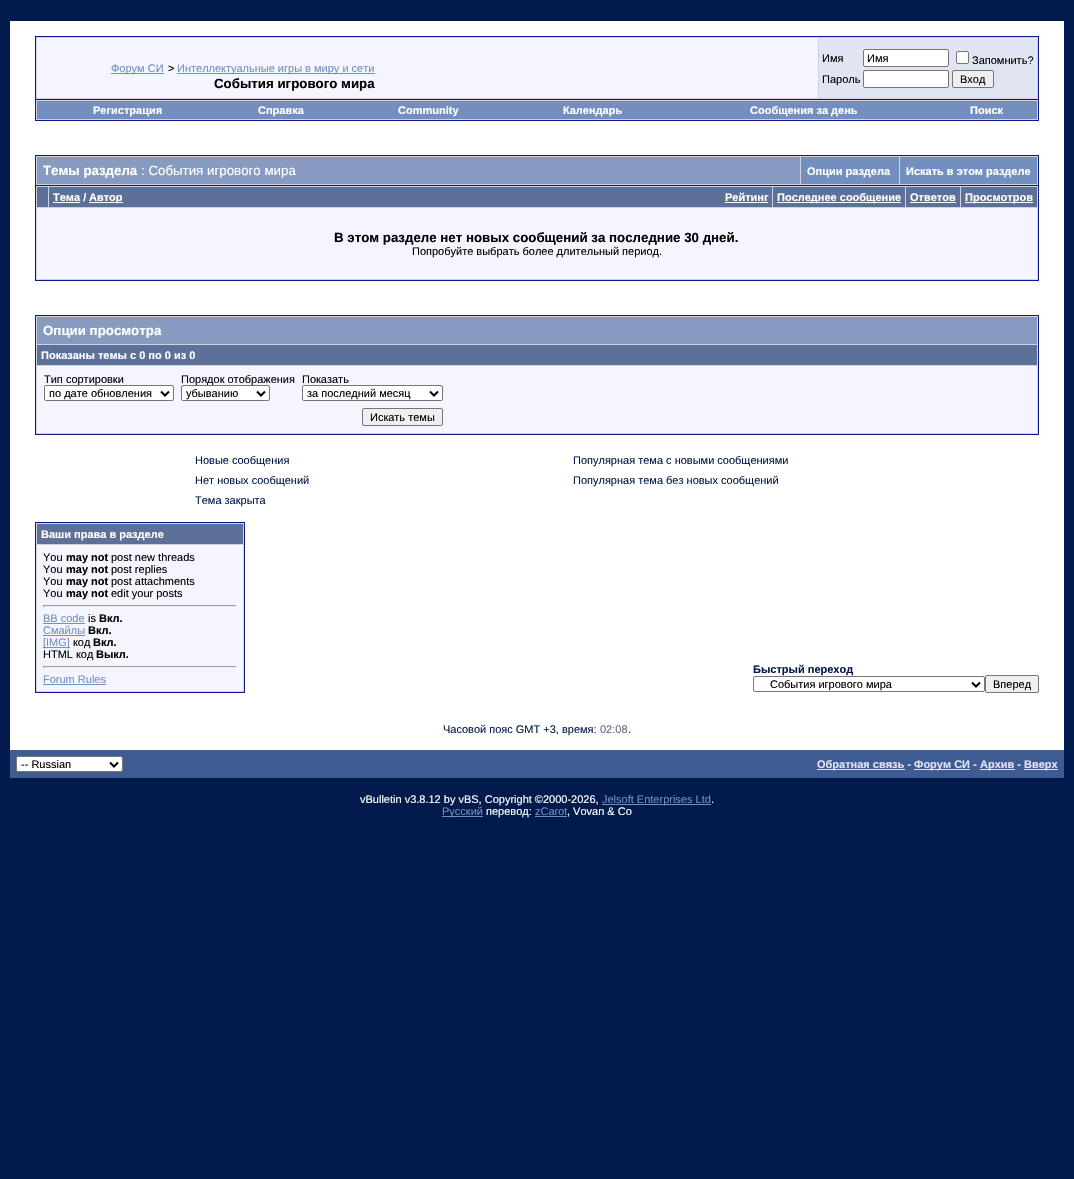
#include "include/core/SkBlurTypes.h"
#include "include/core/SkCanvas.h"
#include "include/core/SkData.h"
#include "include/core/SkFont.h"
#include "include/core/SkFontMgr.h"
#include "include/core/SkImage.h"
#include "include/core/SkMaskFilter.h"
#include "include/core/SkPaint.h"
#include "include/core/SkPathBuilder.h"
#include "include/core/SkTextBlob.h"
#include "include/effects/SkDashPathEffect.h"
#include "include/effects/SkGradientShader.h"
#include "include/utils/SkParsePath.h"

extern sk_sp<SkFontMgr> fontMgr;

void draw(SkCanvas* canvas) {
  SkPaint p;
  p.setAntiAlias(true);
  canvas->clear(SkColorSetRGB(2, 27, 76));
  p.setColor(SK_ColorWHITE);
  canvas->drawRect(SkRect::MakeLTRB(10, 21, 1064, 750), p);
  p.setColor(SkColorSetRGB(209, 209, 225));
  canvas->drawRect(SkRect::MakeLTRB(35.5f, 36.5f, 1038.5f, 99.5f), p);
  p.setStyle(SkPaint::kStroke_Style);
  p.setStrokeWidth(1);
  p.setColor(SkColorSetRGB(11, 25, 140));
  canvas->drawRect(SkRect::MakeLTRB(35.5f, 36.5f, 1038.5f, 99.5f), p);
  p.setStyle(SkPaint::kFill_Style);
  p.setColor(SkColorSetRGB(245, 245, 255));
  canvas->drawRect(SkRect::MakeLTRB(37, 38, 818, 98), p);
  p.setColor(SkColorSetRGB(115, 143, 191));
  canvas->drawRect(SkRect::MakeLTRB(111, 73, 164, 74), p);
  canvas->drawRect(SkRect::MakeLTRB(177, 73, 375, 74), p);
  p.setColor(SkColorSetRGB(225, 228, 242));
  canvas->drawRect(SkRect::MakeLTRB(819, 38, 1037, 98), p);
  p.setColor(SK_ColorWHITE);
  canvas->drawRoundRect(SkRect::MakeLTRB(863.5f, 49.5f, 948.5f, 66.5f), 1.5f, 1.5f, p);
  p.setStyle(SkPaint::kStroke_Style);
  p.setColor(SkColorSetRGB(118, 118, 118));
  canvas->drawRoundRect(SkRect::MakeLTRB(863.5f, 49.5f, 948.5f, 66.5f), 1.5f, 1.5f, p);
  p.setStyle(SkPaint::kFill_Style);
  p.setColor(SK_ColorWHITE);
  canvas->drawRoundRect(SkRect::MakeLTRB(956.5f, 51.5f, 968.5f, 63.5f), 1.5f, 1.5f, p);
  p.setStyle(SkPaint::kStroke_Style);
  p.setColor(SkColorSetRGB(118, 118, 118));
  canvas->drawRoundRect(SkRect::MakeLTRB(956.5f, 51.5f, 968.5f, 63.5f), 1.5f, 1.5f, p);
  p.setStyle(SkPaint::kFill_Style);
  p.setColor(SK_ColorWHITE);
  canvas->drawRoundRect(SkRect::MakeLTRB(863.5f, 70.5f, 948.5f, 87.5f), 1.5f, 1.5f, p);
  p.setStyle(SkPaint::kStroke_Style);
  p.setColor(SkColorSetRGB(118, 118, 118));
  canvas->drawRoundRect(SkRect::MakeLTRB(863.5f, 70.5f, 948.5f, 87.5f), 1.5f, 1.5f, p);
  p.setStyle(SkPaint::kFill_Style);
  p.setColor(SkColorSetRGB(239, 239, 239));
  canvas->drawRoundRect(SkRect::MakeLTRB(952.5f, 70.5f, 993.5f, 87.5f), 1.5f, 1.5f, p);
  p.setStyle(SkPaint::kStroke_Style);
  p.setColor(SkColorSetRGB(118, 118, 118));
  canvas->drawRoundRect(SkRect::MakeLTRB(952.5f, 70.5f, 993.5f, 87.5f), 1.5f, 1.5f, p);
  p.setStyle(SkPaint::kFill_Style);
  p.setColor(SkColorSetRGB(209, 209, 225));
  canvas->drawRect(SkRect::MakeLTRB(36, 100, 1038, 120), p);
  p.setColor(SkColorSetRGB(11, 25, 140));
  canvas->drawRect(SkRect::MakeLTRB(1038, 100, 1039, 121), p);
  canvas->drawRect(SkRect::MakeLTRB(35, 120, 1039, 121), p);
  canvas->drawRect(SkRect::MakeLTRB(35, 100, 36, 121), p);
  p.setColor(SkColorSetRGB(115, 143, 191));
  canvas->drawRect(SkRect::MakeLTRB(37, 101, 1037, 119), p);
  p.setColor(SkColorSetRGB(209, 209, 225));
  canvas->drawRect(SkRect::MakeLTRB(36, 156, 1038, 185), p);
  p.setColor(SkColorSetRGB(11, 25, 140));
  canvas->drawRect(SkRect::MakeLTRB(35, 155, 1039, 156), p);
  canvas->drawRect(SkRect::MakeLTRB(1038, 155, 1039, 185), p);
  canvas->drawRect(SkRect::MakeLTRB(35, 155, 36, 185), p);
  p.setColor(SkColorSetRGB(134, 155, 191));
  canvas->drawRect(SkRect::MakeLTRB(37, 157, 800, 184), p);
  p.setColor(SkColorSetRGB(115, 143, 191));
  canvas->drawRect(SkRect::MakeLTRB(801, 157, 899, 184), p);
  canvas->drawRect(SkRect::MakeLTRB(900, 157, 1037, 184), p);
  p.setColor(SkColorSetRGB(209, 209, 225));
  canvas->drawRect(SkRect::MakeLTRB(35.5f, 185.5f, 1038.5f, 280.5f), p);
  p.setStyle(SkPaint::kStroke_Style);
  p.setColor(SkColorSetRGB(11, 25, 140));
  canvas->drawRect(SkRect::MakeLTRB(35.5f, 185.5f, 1038.5f, 280.5f), p);
  p.setStyle(SkPaint::kFill_Style);
  p.setColor(SkColorSetRGB(92, 112, 153));
  canvas->drawRect(SkRect::MakeLTRB(37, 187, 48, 207), p);
  canvas->drawRect(SkRect::MakeLTRB(49, 187, 772, 207), p);
  p.setColor(SK_ColorWHITE);
  canvas->drawRect(SkRect::MakeLTRB(53, 202, 80, 203), p);
  canvas->drawRect(SkRect::MakeLTRB(89, 202, 123, 203), p);
  canvas->drawRect(SkRect::MakeLTRB(725, 202, 768, 203), p);
  p.setColor(SkColorSetRGB(92, 112, 153));
  canvas->drawRect(SkRect::MakeLTRB(773, 187, 905, 207), p);
  p.setColor(SK_ColorWHITE);
  canvas->drawRect(SkRect::MakeLTRB(777, 202, 901, 203), p);
  p.setColor(SkColorSetRGB(92, 112, 153));
  canvas->drawRect(SkRect::MakeLTRB(906, 187, 960, 207), p);
  p.setColor(SK_ColorWHITE);
  canvas->drawRect(SkRect::MakeLTRB(910, 202, 956, 203), p);
  p.setColor(SkColorSetRGB(92, 112, 153));
  canvas->drawRect(SkRect::MakeLTRB(961, 187, 1037, 207), p);
  p.setColor(SK_ColorWHITE);
  canvas->drawRect(SkRect::MakeLTRB(965, 202, 1033, 203), p);
  p.setColor(SkColorSetRGB(245, 245, 255));
  canvas->drawRect(SkRect::MakeLTRB(37, 208, 1037, 279), p);
  p.setColor(SkColorSetRGB(209, 209, 225));
  canvas->drawRect(SkRect::MakeLTRB(35.5f, 315.5f, 1038.5f, 434.5f), p);
  p.setStyle(SkPaint::kStroke_Style);
  p.setColor(SkColorSetRGB(11, 25, 140));
  canvas->drawRect(SkRect::MakeLTRB(35.5f, 315.5f, 1038.5f, 434.5f), p);
  p.setStyle(SkPaint::kFill_Style);
  p.setColor(SkColorSetRGB(134, 155, 191));
  canvas->drawRect(SkRect::MakeLTRB(37, 317, 1037, 344), p);
  p.setColor(SkColorSetRGB(92, 112, 153));
  canvas->drawRect(SkRect::MakeLTRB(37, 345, 1037, 365), p);
  p.setColor(SkColorSetRGB(245, 245, 255));
  canvas->drawRect(SkRect::MakeLTRB(37, 366, 1037, 433), p);
  p.setColor(SK_ColorWHITE);
  canvas->drawRoundRect(SkRect::MakeLTRB(302.5f, 385.5f, 442.5f, 400.5f), 1.5f, 1.5f, p);
  p.setStyle(SkPaint::kStroke_Style);
  p.setColor(SkColorSetRGB(118, 118, 118));
  canvas->drawRoundRect(SkRect::MakeLTRB(302.5f, 385.5f, 442.5f, 400.5f), 1.5f, 1.5f, p);
  p.setStrokeWidth(2);
  p.setColor(SK_ColorBLACK);
  canvas->drawPath(SkPathBuilder().moveTo(430, 391.5f).lineTo(434, 395.5f).lineTo(438, 391.5f).detach(), p);
  p.setStyle(SkPaint::kFill_Style);
  p.setColor(SkColorSetRGB(239, 239, 239));
  canvas->drawRoundRect(SkRect::MakeLTRB(362.5f, 408.5f, 442.5f, 425.5f), 1.5f, 1.5f, p);
  p.setStyle(SkPaint::kStroke_Style);
  p.setStrokeWidth(1);
  p.setColor(SkColorSetRGB(118, 118, 118));
  canvas->drawRoundRect(SkRect::MakeLTRB(362.5f, 408.5f, 442.5f, 425.5f), 1.5f, 1.5f, p);
  p.setStyle(SkPaint::kFill_Style);
  p.setColor(SkColorSetRGB(209, 209, 225));
  canvas->drawRect(SkRect::MakeLTRB(35.5f, 522.5f, 244.5f, 692.5f), p);
  p.setStyle(SkPaint::kStroke_Style);
  p.setColor(SkColorSetRGB(11, 25, 140));
  canvas->drawRect(SkRect::MakeLTRB(35.5f, 522.5f, 244.5f, 692.5f), p);
  p.setStyle(SkPaint::kFill_Style);
  p.setColor(SkColorSetRGB(92, 112, 153));
  canvas->drawRect(SkRect::MakeLTRB(37, 524, 243, 544), p);
  p.setColor(SkColorSetRGB(245, 245, 255));
  canvas->drawRect(SkRect::MakeLTRB(37, 545, 243, 691), p);
  p.setColor(SkColorSetRGB(159, 159, 159));
  canvas->drawRect(SkRect::MakeLTRB(43, 605, 237, 606), p);
  p.setColor(SkColorSetRGB(238, 238, 238));
  canvas->drawRect(SkRect::MakeLTRB(236, 605, 237, 607), p);
  canvas->drawRect(SkRect::MakeLTRB(43, 606, 237, 607), p);
  p.setColor(SkColorSetRGB(159, 159, 159));
  canvas->drawRect(SkRect::MakeLTRB(43, 605, 44, 607), p);
  p.setColor(SkColorSetRGB(115, 143, 191));
  canvas->drawRect(SkRect::MakeLTRB(43, 623, 85, 624), p);
  canvas->drawRect(SkRect::MakeLTRB(43, 635, 85, 636), p);
  canvas->drawRect(SkRect::MakeLTRB(43, 647, 70, 648), p);
  p.setColor(SkColorSetRGB(159, 159, 159));
  canvas->drawRect(SkRect::MakeLTRB(43, 666, 237, 667), p);
  p.setColor(SkColorSetRGB(238, 238, 238));
  canvas->drawRect(SkRect::MakeLTRB(236, 666, 237, 668), p);
  canvas->drawRect(SkRect::MakeLTRB(43, 667, 237, 668), p);
  p.setColor(SkColorSetRGB(159, 159, 159));
  canvas->drawRect(SkRect::MakeLTRB(43, 666, 44, 668), p);
  p.setColor(SkColorSetRGB(115, 143, 191));
  canvas->drawRect(SkRect::MakeLTRB(43, 684, 106, 685), p);
  p.setStyle(SkPaint::kStroke_Style);
  p.setColor(SkColorSetRGB(118, 118, 118));
  canvas->drawRoundRect(SkRect::MakeLTRB(753.5f, 676.5f, 984.5f, 691.5f), 1.5f, 1.5f, p);
  p.setStrokeWidth(2);
  p.setColor(SK_ColorBLACK);
  canvas->drawPath(SkPathBuilder().moveTo(972, 682.5f).lineTo(976, 686.5f).lineTo(980, 682.5f).detach(), p);
  p.setStyle(SkPaint::kFill_Style);
  p.setColor(SkColorSetRGB(239, 239, 239));
  canvas->drawRoundRect(SkRect::MakeLTRB(985.5f, 675.5f, 1038.5f, 692.5f), 1.5f, 1.5f, p);
  p.setStyle(SkPaint::kStroke_Style);
  p.setStrokeWidth(1);
  p.setColor(SkColorSetRGB(118, 118, 118));
  canvas->drawRoundRect(SkRect::MakeLTRB(985.5f, 675.5f, 1038.5f, 692.5f), 1.5f, 1.5f, p);
  p.setStyle(SkPaint::kFill_Style);
  p.setColor(SkColorSetRGB(62, 92, 146));
  canvas->drawRect(SkRect::MakeLTRB(10, 750, 1064, 778), p);
  p.setColor(SK_ColorWHITE);
  canvas->drawRoundRect(SkRect::MakeLTRB(16.5f, 756.5f, 122.5f, 771.5f), 1.5f, 1.5f, p);
  p.setStyle(SkPaint::kStroke_Style);
  p.setColor(SkColorSetRGB(118, 118, 118));
  canvas->drawRoundRect(SkRect::MakeLTRB(16.5f, 756.5f, 122.5f, 771.5f), 1.5f, 1.5f, p);
  p.setStrokeWidth(2);
  p.setColor(SK_ColorBLACK);
  canvas->drawPath(SkPathBuilder().moveTo(110, 762.5f).lineTo(114, 766.5f).lineTo(118, 762.5f).detach(), p);
  p.setStyle(SkPaint::kFill_Style);
  p.setColor(SkColorSetRGB(224, 224, 246));
  canvas->drawRect(SkRect::MakeLTRB(817, 769, 905, 770), p);
  canvas->drawRect(SkRect::MakeLTRB(914, 769, 970, 770), p);
  canvas->drawRect(SkRect::MakeLTRB(980, 769, 1015, 770), p);
  canvas->drawRect(SkRect::MakeLTRB(1024, 769, 1058, 770), p);
  p.setColor(SkColorSetRGB(115, 143, 191));
  canvas->drawRect(SkRect::MakeLTRB(602, 804, 711, 805), p);
  canvas->drawRect(SkRect::MakeLTRB(442, 816, 483, 817), p);
  canvas->drawRect(SkRect::MakeLTRB(535, 816, 567, 817), p);
  SkFont font1(fontMgr->matchFamilyStyle("Liberation Sans", SkFontStyle::Normal()), 11);
  font1.setSubpixel(true);
  canvas->drawString("Форум СИ", 111, 72, font1, p);
  p.setColor(SK_ColorBLACK);
  canvas->drawString(">", 168, 72, font1, p);
  p.setColor(SkColorSetRGB(115, 143, 191));
  canvas->drawString("Интеллектуальные игры в миру и сети", 177, 72, font1, p);
  SkFont font2(fontMgr->matchFamilyStyle("Liberation Sans", SkFontStyle::Bold()), 13.3f);
  font2.setSubpixel(true);
  p.setColor(SK_ColorBLACK);
  canvas->drawString("События игрового мира", 214, 88, font2, p);
  canvas->drawString("Имя", 822, 62, font1, p);
  canvas->drawString("Имя", 867, 62, font1, p);
  canvas->drawString("Запомнить?", 972, 64, font1, p);
  canvas->drawString("Пароль", 822, 83, font1, p);
  canvas->drawString("Вход", 960, 83, font1, p);
  SkFont font3(fontMgr->matchFamilyStyle("Liberation Sans", SkFontStyle::Bold()), 11);
  font3.setSubpixel(true);
  p.setColor(SK_ColorWHITE);
  canvas->drawString("Регистрация", 93, 114, font3, p);
  canvas->drawString("Справка", 258, 114, font3, p);
  canvas->drawString("Community", 398, 114, font3, p);
  canvas->drawString("Календарь", 563, 114, font3, p);
  canvas->drawString("Сообщения за день", 750, 114, font3, p);
  canvas->drawString("Поиск", 970, 114, font3, p);
  canvas->drawString("Темы раздела", 43, 175, font2, p);
  SkFont font4(fontMgr->matchFamilyStyle("Liberation Sans", SkFontStyle::Normal()), 13.3f);
  font4.setSubpixel(true);
  canvas->drawString(": События игрового мира", 141, 175, font4, p);
  canvas->drawString("Опции раздела", 807, 175, font3, p);
  canvas->drawString("Искать в этом разделе", 906, 175, font3, p);
  canvas->drawString("Тема /", 53, 201, font3, p);
  canvas->drawString("Автор", 89, 201, font3, p);
  canvas->drawString("Рейтинг", 725, 201, font3, p);
  canvas->drawString("Последнее сообщение", 777, 201, font3, p);
  canvas->drawString("Ответов", 910, 201, font3, p);
  canvas->drawString("Просмотров", 965, 201, font3, p);
  p.setColor(SK_ColorBLACK);
  canvas->drawString("В этом разделе нет новых сообщений за последние 30 дней.", 334, 242, font2, p);
  canvas->drawString("Попробуйте выбрать более длительный период.", 412, 255, font1, p);
  p.setColor(SK_ColorWHITE);
  canvas->drawString("Опции просмотра", 43, 335, font2, p);
  canvas->drawString("Показаны темы с 0 по 0 из 0", 41, 359, font3, p);
  p.setColor(SK_ColorBLACK);
  canvas->drawString("Тип сортировки", 44, 383, font1, p);
  p.setColor(SK_ColorWHITE);
  canvas->drawRoundRect(SkRect::MakeLTRB(44.5f, 385.5f, 173.5f, 400.5f), 1.5f, 1.5f, p);
  p.setStyle(SkPaint::kStroke_Style);
  p.setStrokeWidth(1);
  p.setColor(SkColorSetRGB(118, 118, 118));
  canvas->drawRoundRect(SkRect::MakeLTRB(44.5f, 385.5f, 173.5f, 400.5f), 1.5f, 1.5f, p);
  p.setStrokeWidth(2);
  p.setColor(SK_ColorBLACK);
  canvas->drawPath(SkPathBuilder().moveTo(161, 391.5f).lineTo(165, 395.5f).lineTo(169, 391.5f).detach(), p);
  p.setStyle(SkPaint::kFill_Style);
  canvas->drawString("по дате обновления", 49, 397, font1, p);
  canvas->drawString("Порядок отображения", 181, 383, font1, p);
  p.setColor(SK_ColorWHITE);
  canvas->drawRoundRect(SkRect::MakeLTRB(181.5f, 385.5f, 269.5f, 400.5f), 1.5f, 1.5f, p);
  p.setStyle(SkPaint::kStroke_Style);
  p.setStrokeWidth(1);
  p.setColor(SkColorSetRGB(118, 118, 118));
  canvas->drawRoundRect(SkRect::MakeLTRB(181.5f, 385.5f, 269.5f, 400.5f), 1.5f, 1.5f, p);
  p.setStrokeWidth(2);
  p.setColor(SK_ColorBLACK);
  canvas->drawPath(SkPathBuilder().moveTo(257, 391.5f).lineTo(261, 395.5f).lineTo(265, 391.5f).detach(), p);
  p.setStyle(SkPaint::kFill_Style);
  canvas->drawString("убыванию", 186, 397, font1, p);
  canvas->drawString("Показать", 302, 383, font1, p);
  canvas->drawString("за последний месяц", 307, 397, font1, p);
  canvas->drawString("Искать темы", 370, 421, font1, p);
  p.setColor(SkColorSetRGB(2, 27, 76));
  canvas->drawString("Новые сообщения", 195, 464, font1, p);
  canvas->drawString("Популярная тема с новыми сообщениями", 573, 464, font1, p);
  canvas->drawString("Нет новых сообщений", 195, 484, font1, p);
  canvas->drawString("Популярная тема без новых сообщений", 573, 484, font1, p);
  canvas->drawString("Тема закрыта", 195, 504, font1, p);
  p.setColor(SK_ColorWHITE);
  canvas->drawString("Ваши права в разделе", 41, 538, font3, p);
  p.setColor(SK_ColorBLACK);
  canvas->drawString("You", 43, 561, font1, p);
  canvas->drawString("may not", 66, 561, font3, p);
  canvas->drawString("post new threads", 111, 561, font1, p);
  canvas->drawString("You", 43, 573, font1, p);
  canvas->drawString("may not", 66, 573, font3, p);
  canvas->drawString("post replies", 111, 573, font1, p);
  canvas->drawString("You", 43, 585, font1, p);
  canvas->drawString("may not", 66, 585, font3, p);
  canvas->drawString("post attachments", 111, 585, font1, p);
  canvas->drawString("You", 43, 597, font1, p);
  canvas->drawString("may not", 66, 597, font3, p);
  canvas->drawString("edit your posts", 111, 597, font1, p);
  p.setColor(SkColorSetRGB(115, 143, 191));
  canvas->drawString("BB code", 43, 622, font1, p);
  p.setColor(SK_ColorBLACK);
  canvas->drawString("is", 88, 622, font1, p);
  canvas->drawString("Вкл.", 99, 622, font3, p);
  p.setColor(SkColorSetRGB(115, 143, 191));
  canvas->drawString("Смайлы", 43, 634, font1, p);
  p.setColor(SK_ColorBLACK);
  canvas->drawString("Вкл.", 88, 634, font3, p);
  p.setColor(SkColorSetRGB(115, 143, 191));
  canvas->drawString("[IMG]", 43, 646, font1, p);
  p.setColor(SK_ColorBLACK);
  canvas->drawString("код", 73, 646, font1, p);
  canvas->drawString("Вкл.", 93, 646, font3, p);
  canvas->drawString("HTML код", 43, 658, font1, p);
  canvas->drawString("Выкл.", 96, 658, font3, p);
  p.setColor(SkColorSetRGB(115, 143, 191));
  canvas->drawString("Forum Rules", 43, 683, font1, p);
  p.setColor(SkColorSetRGB(2, 27, 76));
  canvas->drawString("Быстрый переход", 753, 673, font3, p);
  p.setColor(SK_ColorBLACK);
  canvas->drawString("События игрового мира", 770, 688, font1, p);
  canvas->drawString("Вперед", 993, 688, font1, p);
  p.setColor(SkColorSetRGB(2, 27, 76));
  canvas->drawString("Часовой пояс GMT +3, время:", 443, 733, font1, p);
  p.setColor(SkColorSetRGB(102, 102, 134));
  canvas->drawString("02:08", 600, 733, font1, p);
  p.setColor(SkColorSetRGB(2, 27, 76));
  canvas->drawString(".", 628, 733, font1, p);
  p.setColor(SK_ColorBLACK);
  canvas->drawString("-- Russian", 21, 768, font1, p);
  p.setColor(SkColorSetRGB(224, 224, 246));
  canvas->drawString("Обратная связь -", 817, 768, font3, p);
  canvas->drawString("Форум СИ -", 914, 768, font3, p);
  canvas->drawString("Архив -", 980, 768, font3, p);
  canvas->drawString("Вверх", 1024, 768, font3, p);
  p.setColor(SK_ColorWHITE);
  canvas->drawString("vBulletin v3.8.12 by vBS, Copyright ©2000-2026,", 360, 803, font1, p);
  p.setColor(SkColorSetRGB(115, 143, 191));
  canvas->drawString("Jelsoft Enterprises Ltd", 602, 803, font1, p);
  p.setColor(SK_ColorWHITE);
  canvas->drawString(".", 711, 803, font1, p);
  p.setColor(SkColorSetRGB(115, 143, 191));
  canvas->drawString("Русский", 442, 815, font1, p);
  p.setColor(SK_ColorWHITE);
  canvas->drawString("перевод:", 486, 815, font1, p);
  p.setColor(SkColorSetRGB(115, 143, 191));
  canvas->drawString("zCarot", 535, 815, font1, p);
  p.setColor(SK_ColorWHITE);
  canvas->drawString(", Vovan & Co", 567, 815, font1, p);
}
